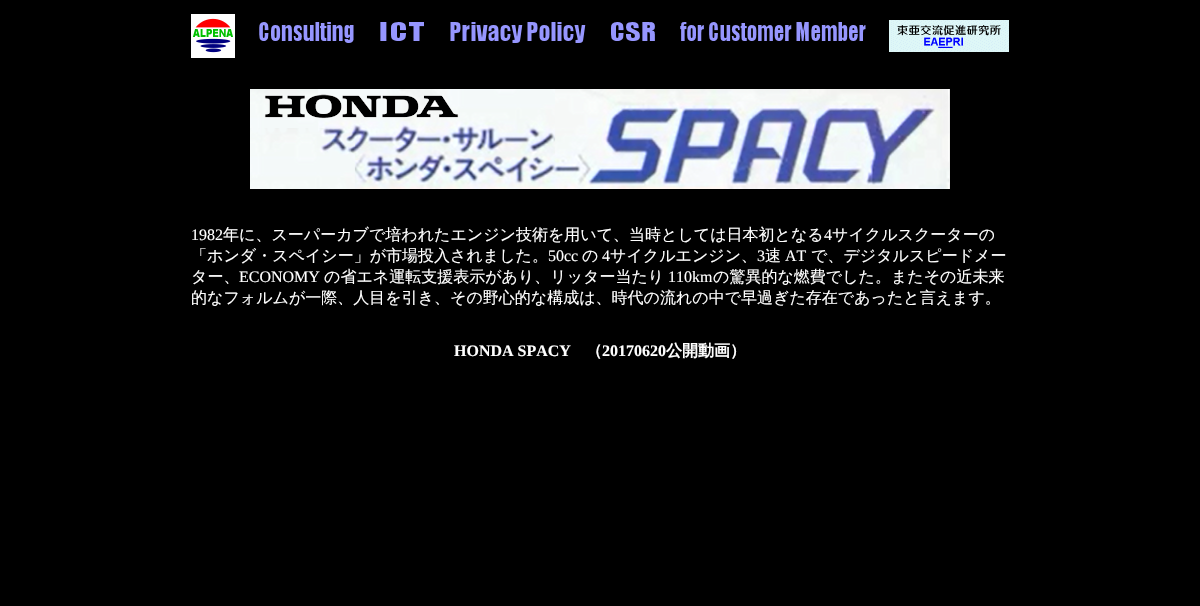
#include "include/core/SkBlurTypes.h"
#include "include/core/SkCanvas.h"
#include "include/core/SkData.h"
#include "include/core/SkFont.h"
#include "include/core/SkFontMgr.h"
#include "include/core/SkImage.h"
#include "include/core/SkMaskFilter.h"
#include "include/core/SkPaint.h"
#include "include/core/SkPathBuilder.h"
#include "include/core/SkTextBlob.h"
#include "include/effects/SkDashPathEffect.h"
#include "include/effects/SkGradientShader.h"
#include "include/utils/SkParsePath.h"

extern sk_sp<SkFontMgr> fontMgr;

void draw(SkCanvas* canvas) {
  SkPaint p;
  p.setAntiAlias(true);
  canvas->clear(SK_ColorBLACK);
  canvas->drawImageRect(SkImages::DeferredFromEncodedData(SkData::MakeFromFileName("images/1.png")), SkRect::MakeLTRB(191, 14, 235, 58), SkSamplingOptions());
  canvas->drawImageRect(SkImages::DeferredFromEncodedData(SkData::MakeFromFileName("images/2.png")), SkRect::MakeLTRB(259, 22, 354, 43), SkSamplingOptions());
  canvas->drawImageRect(SkImages::DeferredFromEncodedData(SkData::MakeFromFileName("images/3.png")), SkRect::MakeLTRB(380, 22, 424, 41), SkSamplingOptions());
  canvas->drawImageRect(SkImages::DeferredFromEncodedData(SkData::MakeFromFileName("images/4.png")), SkRect::MakeLTRB(450, 22, 586, 43), SkSamplingOptions());
  canvas->drawImageRect(SkImages::DeferredFromEncodedData(SkData::MakeFromFileName("images/5.png")), SkRect::MakeLTRB(611, 22, 655, 41), SkSamplingOptions());
  canvas->drawImageRect(SkImages::DeferredFromEncodedData(SkData::MakeFromFileName("images/6.png")), SkRect::MakeLTRB(680, 22, 866, 41), SkSamplingOptions());
  canvas->drawImageRect(SkImages::DeferredFromEncodedData(SkData::MakeFromFileName("images/7.png")), SkRect::MakeLTRB(889, 20, 1009, 52), SkSamplingOptions());
  canvas->drawImageRect(SkImages::DeferredFromEncodedData(SkData::MakeFromFileName("images/8.png")), SkRect::MakeLTRB(250, 89, 950, 189), SkSamplingOptions());
  SkFont font1(fontMgr->matchFamilyStyle("Liberation Serif", SkFontStyle::Normal()), 16);
  font1.setSubpixel(true);
  p.setColor(SK_ColorWHITE);
  canvas->drawString("1982", 191, 240, font1, p);
  SkFont font2(fontMgr->matchFamilyStyle("WenQuanYi Zen Hei", SkFontStyle(500, SkFontStyle::kNormal_Width, SkFontStyle::kUpright_Slant)), 16);
  font2.setSubpixel(true);
  canvas->drawString("年に、スーパーカブで培われたエンジン技術を用いて、当時としては日本初となる", 223, 240, font2, p);
  canvas->drawString("4", 824, 240, font1, p);
  canvas->drawString("サイクルスクーターの", 832, 240, font2, p);
  canvas->drawString("「ホンダ・スペイシー」が市場投入されました。", 191, 261, font2, p);
  canvas->drawString("50cc", 548, 261, font1, p);
  canvas->drawString("の", 582, 261, font2, p);
  canvas->drawString("4", 602, 261, font1, p);
  canvas->drawString("サイクルエンジン、", 610, 261, font2, p);
  canvas->drawString("3", 757, 261, font1, p);
  canvas->drawString("速", 765, 261, font2, p);
  canvas->drawString("AT", 785, 261, font1, p);
  canvas->drawString("で、デジタルスピードメー", 811, 261, font2, p);
  canvas->drawString("ター、", 191, 282, font2, p);
  canvas->drawString("ECONOMY", 239, 282, font1, p);
  canvas->drawString("の省エネ運転支援表示があり、リッター当たり", 324, 282, font2, p);
  canvas->drawString("110km", 668, 282, font1, p);
  canvas->drawString("の驚異的な燃費でした。またその近未来", 713, 282, font2, p);
  canvas->drawString("的なフォルムが一際、人目を引き、その野心的な構成は、時代の流れの中で早過ぎた存在であったと言えます。", 191, 303, font2, p);
  SkFont font3(fontMgr->matchFamilyStyle("Liberation Serif", SkFontStyle::Bold()), 16);
  font3.setSubpixel(true);
  canvas->drawString("HONDA SPACY", 454, 356, font3, p);
  SkFont font4(fontMgr->matchFamilyStyle("WenQuanYi Zen Hei", SkFontStyle::Bold()), 16);
  font4.setSubpixel(true);
  canvas->drawString("（", 586, 356, font4, p);
  canvas->drawString("20170620", 602, 356, font3, p);
  canvas->drawString("公開動画）", 666, 356, font4, p);
}
